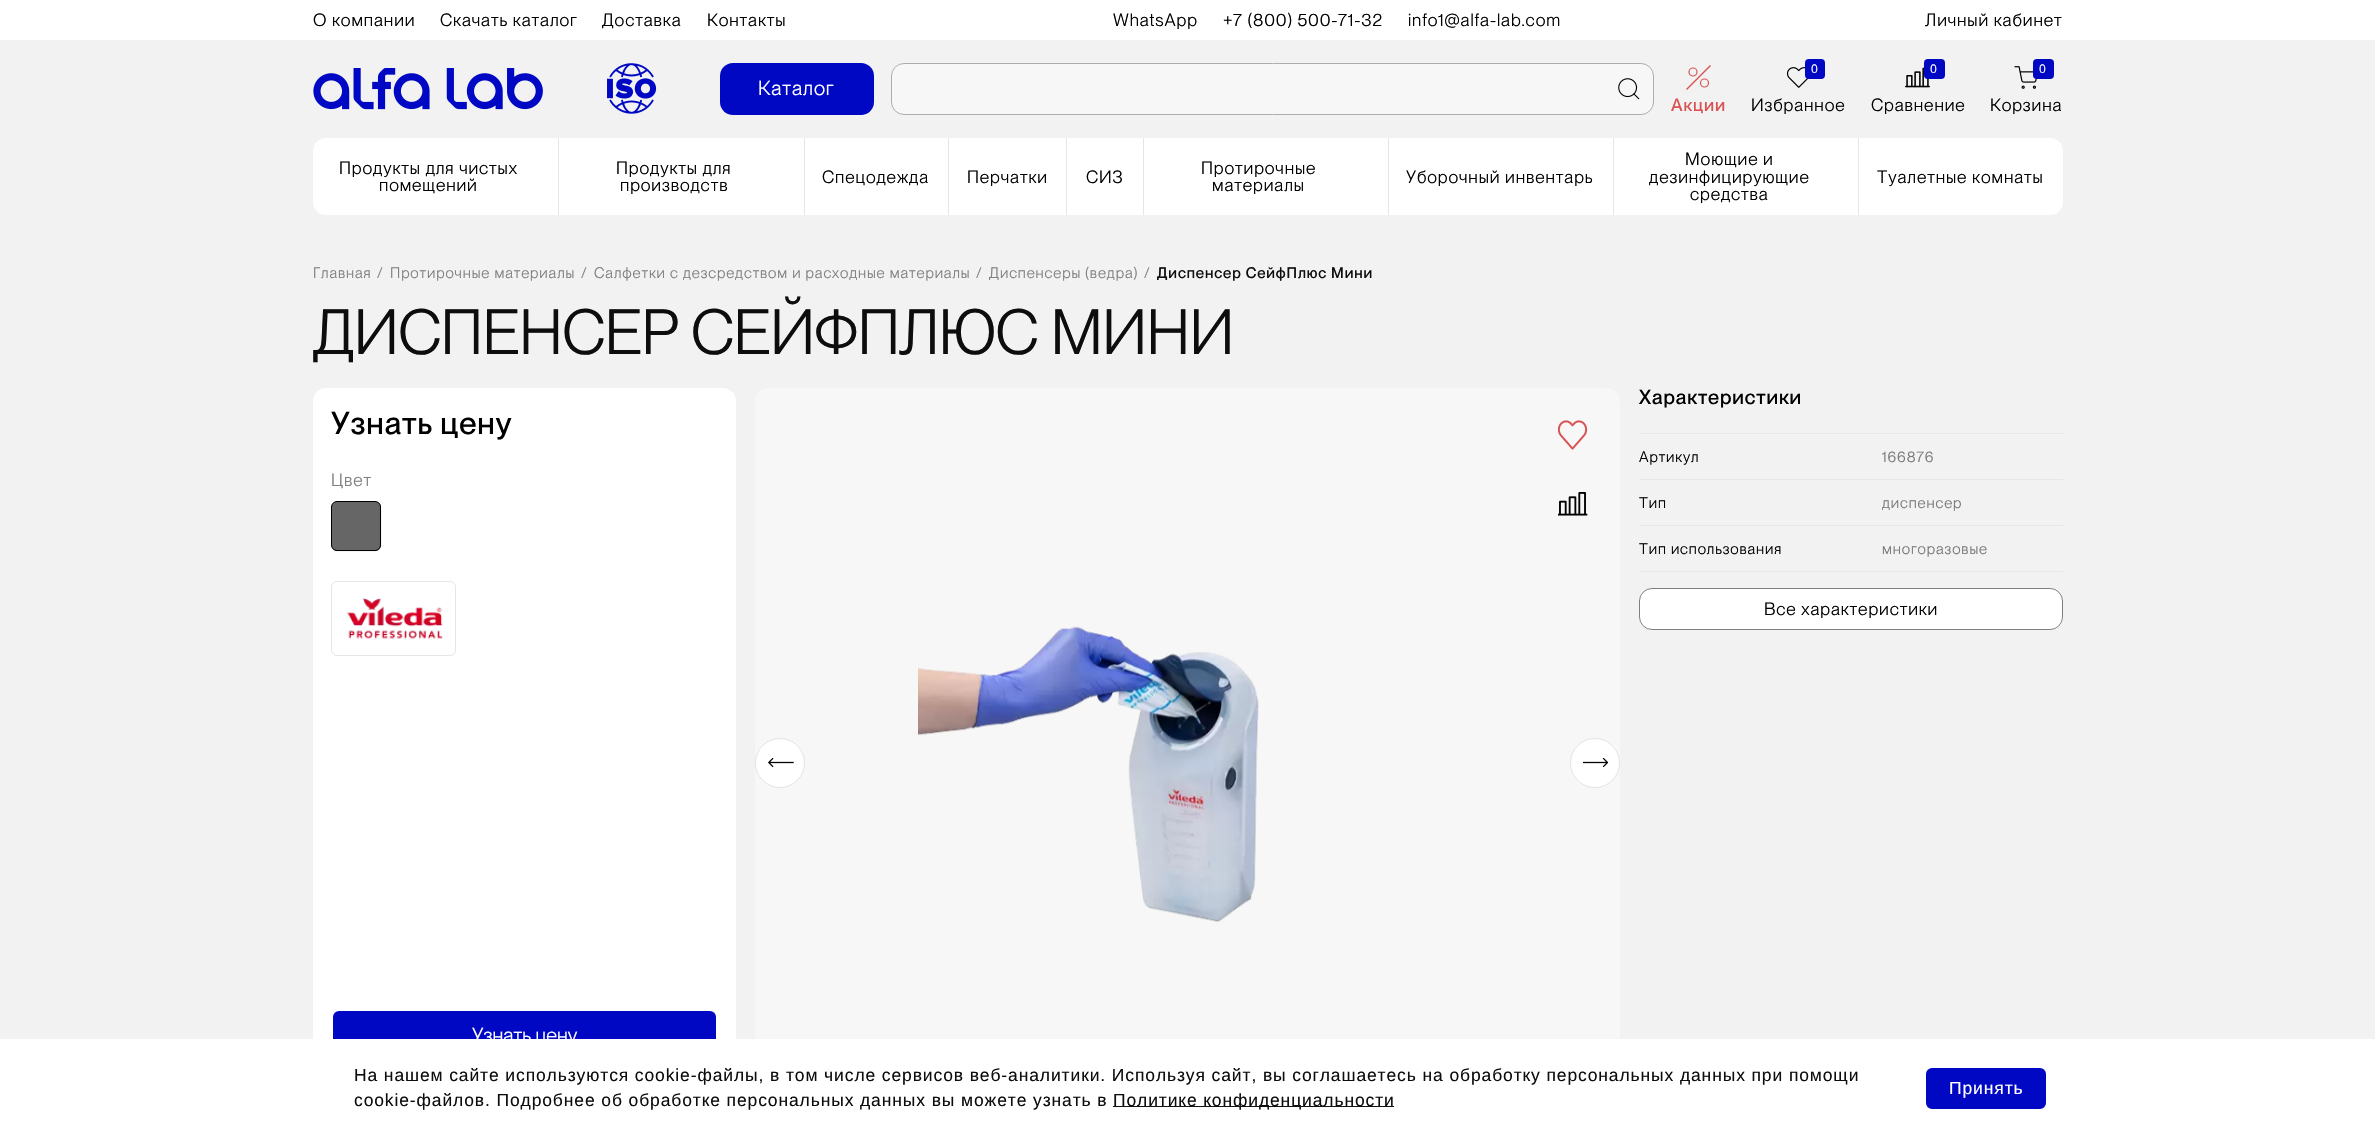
#include "include/core/SkBlurTypes.h"
#include "include/core/SkCanvas.h"
#include "include/core/SkData.h"
#include "include/core/SkFont.h"
#include "include/core/SkFontMgr.h"
#include "include/core/SkImage.h"
#include "include/core/SkMaskFilter.h"
#include "include/core/SkPaint.h"
#include "include/core/SkPathBuilder.h"
#include "include/core/SkTextBlob.h"
#include "include/effects/SkDashPathEffect.h"
#include "include/effects/SkGradientShader.h"
#include "include/utils/SkParsePath.h"

extern sk_sp<SkFontMgr> fontMgr;

void draw(SkCanvas* canvas) {
  SkPaint p;
  p.setAntiAlias(true);
  auto spacedText = [&](const char* s, float x, float y, const SkFont& font, const SkPaint& ink, float letter, float word) {
    std::vector<SkGlyphID> glyphs(font.countText(s, strlen(s), SkTextEncoding::kUTF8));
    std::vector<float> xs(glyphs.size());
    font.textToGlyphs(s, strlen(s), SkTextEncoding::kUTF8, glyphs);
    font.getXPos(glyphs, xs, x);
    float extra = 0;
    for (size_t i = 0; i < glyphs.size(); i++) {
      xs[i] += extra;
      extra += letter + word * (glyphs[i] == font.unicharToGlyph(' '));
    }
    canvas->drawTextBlob(SkTextBlob::MakeFromPosHGlyphs(glyphs, xs, y, font), 0, 0, ink);
  };
  canvas->clear(SkColorSetRGB(242, 242, 242));
  p.setColor(SK_ColorWHITE);
  canvas->drawRect(SkRect::MakeLTRB(0, 0, 2375, 40), p);
  canvas->drawImageRect(SkImages::DeferredFromEncodedData(SkData::MakeFromFileName("images/1.png")), SkRect::MakeLTRB(313, 68, 543, 110), SkSamplingOptions());
  canvas->drawImageRect(SkImages::DeferredFromEncodedData(SkData::MakeFromFileName("images/2.png")), SkRect::MakeLTRB(607, 63, 657, 114), SkSamplingOptions());
  p.setColor(SkColorSetRGB(0, 8, 195));
  canvas->drawRoundRect(SkRect::MakeLTRB(720, 63, 874, 115), 13, 13, p);
  p.setColor(SkColorSetRGB(247, 247, 247));
  canvas->drawRoundRect(SkRect::MakeLTRB(891.5f, 63.5f, 1653.5f, 114.5f), 12.5f, 12.5f, p);
  p.setStyle(SkPaint::kStroke_Style);
  p.setStrokeWidth(1);
  p.setColor(SkColorSetRGB(173, 173, 173));
  canvas->drawRoundRect(SkRect::MakeLTRB(891.5f, 63.5f, 1653.5f, 114.5f), 12.5f, 12.5f, p);
  canvas->drawImageRect(SkImages::DeferredFromEncodedData(SkData::MakeFromFileName("images/3.png")), SkRect::MakeLTRB(1618, 78, 1640, 100), SkSamplingOptions());
  canvas->drawImageRect(SkImages::DeferredFromEncodedData(SkData::MakeFromFileName("images/4.png")), SkRect::MakeLTRB(1786, 67, 1809, 88), SkSamplingOptions());
  p.setStyle(SkPaint::kFill_Style);
  p.setColor(SkColorSetRGB(0, 8, 195));
  canvas->drawRoundRect(SkRect::MakeLTRB(1805, 59, 1825, 79), 4, 4, p);
  canvas->drawImageRect(SkImages::DeferredFromEncodedData(SkData::MakeFromFileName("images/5.png")), SkRect::MakeLTRB(1905, 67, 1930, 88), SkSamplingOptions());
  canvas->drawRoundRect(SkRect::MakeLTRB(1924, 59, 1945, 79), 4, 4, p);
  canvas->drawImageRect(SkImages::DeferredFromEncodedData(SkData::MakeFromFileName("images/6.png")), SkRect::MakeLTRB(2014, 66, 2037, 89), SkSamplingOptions());
  canvas->drawRoundRect(SkRect::MakeLTRB(2033, 59, 2054, 79), 4, 4, p);
  p.setColor(SkColorSetRGB(216, 84, 84));
  canvas->drawPath(SkPathBuilder().moveTo(1686, 89).lineTo(1710, 65).lineTo(1711, 66).lineTo(1687, 90).close().detach(), p);
  p.setStyle(SkPaint::kStroke_Style);
  p.setStrokeWidth(1.2f);
  canvas->drawCircle(1693, 72, 4, p);
  canvas->drawCircle(1704.5f, 83, 4, p);
  p.setStyle(SkPaint::kFill_Style);
  p.setColor(SK_ColorWHITE);
  canvas->drawRoundRect(SkRect::MakeLTRB(313, 138, 2063, 215), 13, 13, p);
  p.setColor(SkColorSetRGB(230, 230, 230));
  canvas->drawRect(SkRect::MakeLTRB(558, 138, 559, 215), p);
  canvas->drawRect(SkRect::MakeLTRB(804, 138, 805, 215), p);
  canvas->drawRect(SkRect::MakeLTRB(948, 138, 949, 215), p);
  canvas->drawRect(SkRect::MakeLTRB(1066, 138, 1067, 215), p);
  canvas->drawRect(SkRect::MakeLTRB(1143, 138, 1144, 215), p);
  canvas->drawRect(SkRect::MakeLTRB(1388, 138, 1389, 215), p);
  canvas->drawRect(SkRect::MakeLTRB(1613, 138, 1614, 215), p);
  canvas->drawRect(SkRect::MakeLTRB(1858, 138, 1859, 215), p);
  p.setColor(SK_ColorWHITE);
  canvas->drawRoundRect(SkRect::MakeLTRB(313, 388, 736, 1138), 13, 13, p);
  canvas->drawImageRect(SkImages::DeferredFromEncodedData(SkData::MakeFromFileName("images/7.png")), SkRect::MakeLTRB(331, 501, 382, 552), SkSamplingOptions());
  p.setStyle(SkPaint::kStroke_Style);
  p.setStrokeWidth(1);
  p.setColor(SK_ColorBLACK);
  canvas->drawRoundRect(SkRect::MakeLTRB(331.5f, 501.5f, 380.5f, 550.5f), 5.5f, 5.5f, p);
  canvas->drawImageRect(SkImages::DeferredFromEncodedData(SkData::MakeFromFileName("images/8.png")), SkRect::MakeLTRB(346, 598, 443, 639), SkSamplingOptions());
  p.setColor(SkColorSetRGB(230, 230, 230));
  canvas->drawRoundRect(SkRect::MakeLTRB(331.5f, 581.5f, 455.5f, 655.5f), 5.5f, 5.5f, p);
  p.setStyle(SkPaint::kFill_Style);
  p.setColor(SkColorSetRGB(0, 8, 195));
  canvas->drawRoundRect(SkRect::MakeLTRB(333, 1011, 716, 1059), 6, 6, p);
  p.setColor(SkColorSetRGB(247, 247, 247));
  canvas->drawRoundRect(SkRect::MakeLTRB(755, 388, 1620, 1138), 13, 13, p);
  canvas->drawImageRect(SkImages::DeferredFromEncodedData(SkData::MakeFromFileName("images/9.png")), SkRect::MakeLTRB(1558, 420, 1588, 450), SkSamplingOptions());
  canvas->drawImageRect(SkImages::DeferredFromEncodedData(SkData::MakeFromFileName("images/10.png")), SkRect::MakeLTRB(1558, 492, 1588, 516), SkSamplingOptions());
  p.setColor(SK_ColorWHITE);
  canvas->drawCircle(780, 763, 25, p);
  p.setStyle(SkPaint::kStroke_Style);
  p.setColor(SkColorSetARGB(26, 0, 0, 0));
  canvas->drawCircle(780, 763, 24.5f, p);
  canvas->drawImageRect(SkImages::DeferredFromEncodedData(SkData::MakeFromFileName("images/11.png")), SkRect::MakeLTRB(768, 758, 794, 768), SkSamplingOptions());
  canvas->drawImageRect(SkImages::DeferredFromEncodedData(SkData::MakeFromFileName("images/12.png")), SkRect::MakeLTRB(918, 626, 1259, 922), SkSamplingOptions());
  p.setStyle(SkPaint::kFill_Style);
  p.setColor(SK_ColorWHITE);
  canvas->drawCircle(1595, 763, 25, p);
  p.setStyle(SkPaint::kStroke_Style);
  p.setColor(SkColorSetARGB(26, 0, 0, 0));
  canvas->drawCircle(1595, 763, 24.5f, p);
  canvas->drawImageRect(SkImages::DeferredFromEncodedData(SkData::MakeFromFileName("images/13.png")), SkRect::MakeLTRB(1583, 758, 1609, 768), SkSamplingOptions());
  p.setStyle(SkPaint::kFill_Style);
  p.setColor(SkColorSetRGB(230, 230, 230));
  canvas->drawRect(SkRect::MakeLTRB(1639, 433, 2063, 434), p);
  canvas->drawRect(SkRect::MakeLTRB(1639, 479, 2063, 480), p);
  canvas->drawRect(SkRect::MakeLTRB(1639, 525, 2063, 526), p);
  canvas->drawRect(SkRect::MakeLTRB(1639, 571, 2063, 572), p);
  p.setColor(SK_ColorWHITE);
  canvas->drawRoundRect(SkRect::MakeLTRB(1639, 588, 2063, 630), 13, 13, p);
  p.setStyle(SkPaint::kStroke_Style);
  p.setColor(SkColorSetARGB(128, 0, 0, 0));
  canvas->drawRoundRect(SkRect::MakeLTRB(1639.5f, 588.5f, 2062.5f, 629.5f), 12.5f, 12.5f, p);
  p.setStyle(SkPaint::kFill_Style);
  p.setColor(SK_ColorWHITE);
  canvas->drawRect(SkRect::MakeLTRB(0, 1039, 2375, 1137), p);
  p.setColor(SkColorSetRGB(17, 17, 17));
  canvas->drawRect(SkRect::MakeLTRB(1113, 1106, 1394, 1107), p);
  p.setColor(SkColorSetRGB(0, 8, 195));
  canvas->drawRoundRect(SkRect::MakeLTRB(1927.5f, 1069.5f, 2044.5f, 1107.5f), 4.5f, 4.5f, p);
  p.setStyle(SkPaint::kStroke_Style);
  p.setStrokeWidth(3);
  canvas->drawRoundRect(SkRect::MakeLTRB(1927.5f, 1069.5f, 2044.5f, 1107.5f), 4.5f, 4.5f, p);
  SkFont font1(fontMgr->matchFamilyStyle("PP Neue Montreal", SkFontStyle::Normal()), 17.5f);
  font1.setSubpixel(true);
  p.setStyle(SkPaint::kFill_Style);
  p.setColor(SK_ColorBLACK);
  spacedText("О компании", 313, 26, font1, p, 0.88f, 0);
  spacedText("Скачать каталог", 440, 26, font1, p, 0.88f, 0);
  spacedText("Доставка", 602, 26, font1, p, 0.88f, 0);
  spacedText("Контакты", 707, 26, font1, p, 0.88f, 0);
  spacedText("WhatsApp", 1113, 26, font1, p, 0.88f, 0);
  spacedText("+7 (800) 500-71-32", 1223, 26, font1, p, 0.88f, 0);
  spacedText("info1@alfa-lab.com", 1408, 26, font1, p, 0.88f, 0);
  spacedText("Личный кабинет", 1925, 26, font1, p, 0.88f, 0);
  SkFont font2(fontMgr->matchFamilyStyle("PP Neue Montreal", SkFontStyle::Normal()), 20);
  font2.setSubpixel(true);
  p.setColor(SK_ColorWHITE);
  spacedText("Каталог", 758, 95, font2, p, 0.88f, 0);
  SkFont font3(fontMgr->matchFamilyStyle("Open Sans", SkFontStyle::Normal()), 12);
  font3.setSubpixel(true);
  spacedText("0", 1811, 73, font3, p, 0.88f, 0);
  p.setColor(SK_ColorBLACK);
  spacedText("Избранное", 1751, 111, font1, p, 0.88f, 0);
  p.setColor(SK_ColorWHITE);
  spacedText("0", 1930, 73, font3, p, 0.88f, 0);
  p.setColor(SK_ColorBLACK);
  spacedText("Сравнение", 1871, 111, font1, p, 0.88f, 0);
  p.setColor(SK_ColorWHITE);
  spacedText("0", 2039, 73, font3, p, 0.88f, 0);
  p.setColor(SK_ColorBLACK);
  spacedText("Корзина", 1990, 111, font1, p, 0.88f, 0);
  SkFont font4(fontMgr->matchFamilyStyle("PP Neue Montreal", SkFontStyle(500, SkFontStyle::kNormal_Width, SkFontStyle::kUpright_Slant)), 17.5f);
  font4.setSubpixel(true);
  p.setColor(SkColorSetRGB(216, 84, 84));
  spacedText("Акции", 1671, 111, font4, p, 0.88f, 0);
  p.setColor(SK_ColorBLACK);
  spacedText("Продукты для чистых", 339, 174, font1, p, 0.88f, 0);
  spacedText("помещений", 379, 191, font1, p, 0.88f, 0);
  spacedText("Продукты для", 616, 174, font1, p, 0.88f, 0);
  spacedText("производств", 620, 191, font1, p, 0.88f, 0);
  spacedText("Спецодежда", 822, 183, font1, p, 0.88f, 0);
  spacedText("Перчатки", 967, 183, font1, p, 0.88f, 0);
  spacedText("СИЗ", 1086, 183, font1, p, 0.88f, 0);
  spacedText("Протирочные", 1201, 174, font1, p, 0.88f, 0);
  spacedText("материалы", 1212, 191, font1, p, 0.88f, 0);
  spacedText("Уборочный инвентарь", 1406, 183, font1, p, 0.88f, 0);
  spacedText("Моющие и", 1685, 165, font1, p, 0.88f, 0);
  spacedText("дезинфицирующие", 1649, 183, font1, p, 0.88f, 0);
  spacedText("средства", 1690, 200, font1, p, 0.88f, 0);
  spacedText("Туалетные комнаты", 1877, 183, font1, p, 0.88f, 0);
  SkFont font5(fontMgr->matchFamilyStyle("PP Neue Montreal", SkFontStyle::Normal()), 15);
  font5.setSubpixel(true);
  p.setColor(SkColorSetRGB(128, 128, 128));
  spacedText("Главная", 313, 278, font5, p, 0.88f, 0);
  spacedText("/", 377, 278, font5, p, 0.88f, 0);
  spacedText("Протирочные материалы", 390, 278, font5, p, 0.88f, 0);
  spacedText("/", 581, 278, font5, p, 0.88f, 0);
  spacedText("Салфетки с дезсредством и расходные материалы", 594, 278, font5, p, 0.88f, 0);
  spacedText("/", 976, 278, font5, p, 0.88f, 0);
  spacedText("Диспенсеры (ведра)", 989, 278, font5, p, 0.88f, 0);
  spacedText("/", 1144, 278, font5, p, 0.88f, 0);
  SkFont font6(fontMgr->matchFamilyStyle("PP Neue Montreal", SkFontStyle(500, SkFontStyle::kNormal_Width, SkFontStyle::kUpright_Slant)), 15);
  font6.setSubpixel(true);
  p.setColor(SkColorSetRGB(13, 13, 13));
  spacedText("Диспенсер СейфПлюс Мини", 1157, 278, font6, p, 0.88f, 0);
  SkFont font7(fontMgr->matchFamilyStyle("PP Neue Montreal", SkFontStyle::Normal()), 62.5f);
  font7.setSubpixel(true);
  spacedText("ДИСПЕНСЕР СЕЙФПЛЮС МИНИ", 313, 354, font7, p, -1, 0);
  SkFont font8(fontMgr->matchFamilyStyle("PP Neue Montreal", SkFontStyle(500, SkFontStyle::kNormal_Width, SkFontStyle::kUpright_Slant)), 31.25f);
  font8.setSubpixel(true);
  p.setColor(SK_ColorBLACK);
  spacedText("Узнать цену", 331, 434, font8, p, 0.88f, 0);
  p.setColor(SkColorSetRGB(128, 128, 128));
  spacedText("Цвет", 331, 486, font1, p, 0.88f, 0);
  p.setColor(SK_ColorWHITE);
  canvas->drawString("Узнать цену", 472, 1042, font2, p);
  SkFont font9(fontMgr->matchFamilyStyle("PP Neue Montreal", SkFontStyle(500, SkFontStyle::kNormal_Width, SkFontStyle::kUpright_Slant)), 20);
  font9.setSubpixel(true);
  p.setColor(SK_ColorBLACK);
  spacedText("Характеристики", 1639, 404, font9, p, 0.88f, 0);
  spacedText("Артикул", 1639, 462, font5, p, 0.88f, 0);
  p.setColor(SkColorSetRGB(121, 121, 121));
  spacedText("166876", 1882, 462, font5, p, 0.88f, 0);
  p.setColor(SK_ColorBLACK);
  spacedText("Тип", 1639, 508, font5, p, 0.88f, 0);
  p.setColor(SkColorSetRGB(121, 121, 121));
  spacedText("диспенсер", 1882, 508, font5, p, 0.88f, 0);
  p.setColor(SK_ColorBLACK);
  spacedText("Тип использования", 1639, 554, font5, p, 0.88f, 0);
  p.setColor(SkColorSetRGB(121, 121, 121));
  spacedText("многоразовые", 1882, 554, font5, p, 0.88f, 0);
  p.setColor(SK_ColorBLACK);
  spacedText("Все характеристики", 1764, 615, font1, p, 0.88f, 0);
  SkFont font10(fontMgr->matchFamilyStyle("Liberation Sans", SkFontStyle::Normal()), 17.5f);
  font10.setSubpixel(true);
  p.setColor(SkColorSetRGB(13, 13, 13));
  spacedText("На нашем сайте используются cookie-файлы, в том числе сервисов веб-аналитики. Используя сайт, вы соглашаетесь на обработку персональных данных при помощи", 354, 1081, font10, p, 0.88f, 0);
  spacedText("cookie-файлов. Подробнее об обработке персональных данных вы можете узнать в", 354, 1106, font10, p, 0.88f, 0);
  spacedText("Политике конфиденциальности", 1113, 1106, font10, p, 0.88f, 0);
  p.setColor(SK_ColorWHITE);
  spacedText("Принять", 1949, 1094, font10, p, 0.88f, 0);
}
